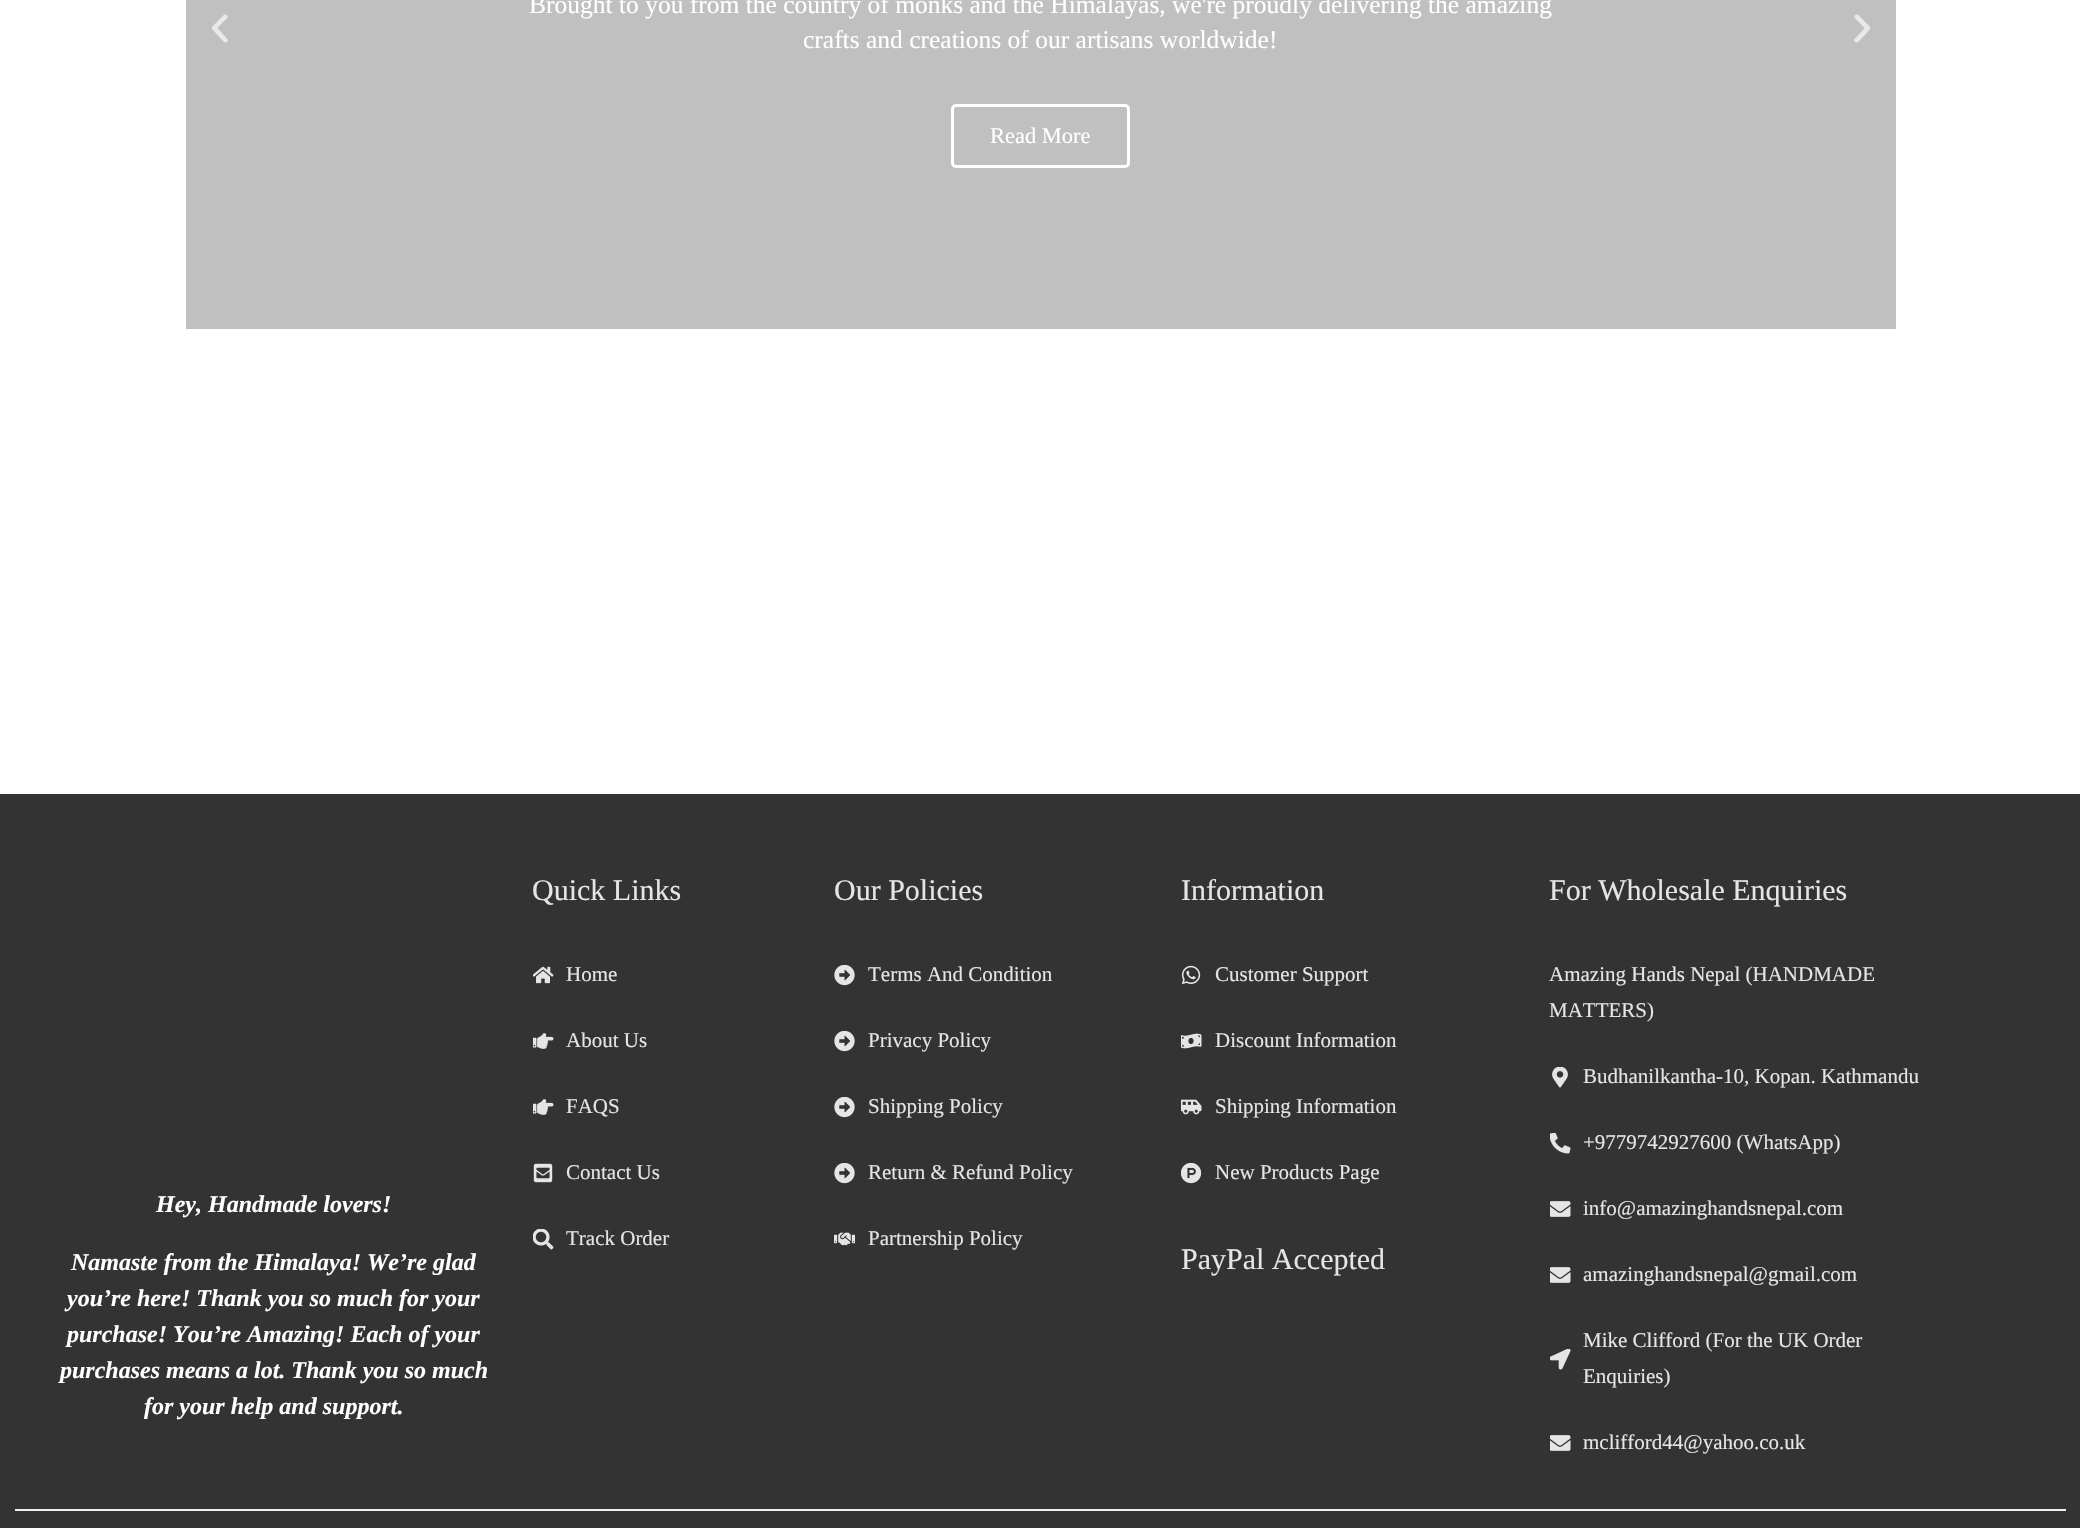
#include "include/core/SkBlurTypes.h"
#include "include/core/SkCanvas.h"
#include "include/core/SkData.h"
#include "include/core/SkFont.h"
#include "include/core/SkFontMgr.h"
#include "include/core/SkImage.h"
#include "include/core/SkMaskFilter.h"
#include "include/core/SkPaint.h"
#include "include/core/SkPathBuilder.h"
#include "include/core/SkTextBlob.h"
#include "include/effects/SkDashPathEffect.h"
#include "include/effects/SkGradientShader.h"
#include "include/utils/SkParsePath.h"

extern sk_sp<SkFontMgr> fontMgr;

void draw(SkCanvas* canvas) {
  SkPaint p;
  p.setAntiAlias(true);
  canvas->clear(SK_ColorWHITE);
  p.setColor(SkColorSetRGB(192, 192, 192));
  canvas->drawRect(SkRect::MakeLTRB(186, 0, 1896, 329), p);
  canvas->drawImageRect(SkImages::DeferredFromEncodedData(SkData::MakeFromFileName("images/1.png")), SkRect::MakeLTRB(212, 14, 228, 43), SkSamplingOptions());
  p.setStyle(SkPaint::kStroke_Style);
  p.setStrokeWidth(3);
  p.setColor(SK_ColorWHITE);
  canvas->drawRoundRect(SkRect::MakeLTRB(952.5f, 105.5f, 1128.5f, 166.5f), 3.5f, 3.5f, p);
  canvas->drawImageRect(SkImages::DeferredFromEncodedData(SkData::MakeFromFileName("images/2.png")), SkRect::MakeLTRB(1854, 14, 1871, 43), SkSamplingOptions());
  p.setStyle(SkPaint::kFill_Style);
  p.setColor(SkColorSetRGB(51, 51, 51));
  canvas->drawRect(SkRect::MakeLTRB(0, 794, 2080, 1528), p);
  canvas->drawImageRect(SkImages::DeferredFromEncodedData(SkData::MakeFromFileName("images/3.png")), SkRect::MakeLTRB(533, 966, 554, 984), SkSamplingOptions());
  canvas->drawImageRect(SkImages::DeferredFromEncodedData(SkData::MakeFromFileName("images/4.png")), SkRect::MakeLTRB(533, 1033, 554, 1049), SkSamplingOptions());
  canvas->drawImageRect(SkImages::DeferredFromEncodedData(SkData::MakeFromFileName("images/4.png")), SkRect::MakeLTRB(533, 1099, 554, 1115), SkSamplingOptions());
  canvas->drawImageRect(SkImages::DeferredFromEncodedData(SkData::MakeFromFileName("images/5.png")), SkRect::MakeLTRB(533, 1163, 553, 1183), SkSamplingOptions());
  canvas->drawImageRect(SkImages::DeferredFromEncodedData(SkData::MakeFromFileName("images/6.png")), SkRect::MakeLTRB(533, 1229, 554, 1250), SkSamplingOptions());
  canvas->drawImageRect(SkImages::DeferredFromEncodedData(SkData::MakeFromFileName("images/7.png")), SkRect::MakeLTRB(834, 965, 855, 986), SkSamplingOptions());
  canvas->drawImageRect(SkImages::DeferredFromEncodedData(SkData::MakeFromFileName("images/7.png")), SkRect::MakeLTRB(834, 1031, 855, 1052), SkSamplingOptions());
  canvas->drawImageRect(SkImages::DeferredFromEncodedData(SkData::MakeFromFileName("images/7.png")), SkRect::MakeLTRB(834, 1097, 855, 1118), SkSamplingOptions());
  canvas->drawImageRect(SkImages::DeferredFromEncodedData(SkData::MakeFromFileName("images/7.png")), SkRect::MakeLTRB(834, 1163, 855, 1184), SkSamplingOptions());
  canvas->drawImageRect(SkImages::DeferredFromEncodedData(SkData::MakeFromFileName("images/8.png")), SkRect::MakeLTRB(834, 1232, 855, 1246), SkSamplingOptions());
  canvas->drawImageRect(SkImages::DeferredFromEncodedData(SkData::MakeFromFileName("images/9.png")), SkRect::MakeLTRB(1181, 965, 1201, 985), SkSamplingOptions());
  canvas->drawImageRect(SkImages::DeferredFromEncodedData(SkData::MakeFromFileName("images/10.png")), SkRect::MakeLTRB(1181, 1033, 1202, 1049), SkSamplingOptions());
  canvas->drawImageRect(SkImages::DeferredFromEncodedData(SkData::MakeFromFileName("images/11.png")), SkRect::MakeLTRB(1181, 1099, 1202, 1115), SkSamplingOptions());
  canvas->drawImageRect(SkImages::DeferredFromEncodedData(SkData::MakeFromFileName("images/12.png")), SkRect::MakeLTRB(1181, 1163, 1202, 1184), SkSamplingOptions());
  canvas->drawImageRect(SkImages::DeferredFromEncodedData(SkData::MakeFromFileName("images/13.png")), SkRect::MakeLTRB(1552, 1067, 1568, 1088), SkSamplingOptions());
  canvas->drawImageRect(SkImages::DeferredFromEncodedData(SkData::MakeFromFileName("images/14.png")), SkRect::MakeLTRB(1550, 1133, 1571, 1154), SkSamplingOptions());
  canvas->drawImageRect(SkImages::DeferredFromEncodedData(SkData::MakeFromFileName("images/15.png")), SkRect::MakeLTRB(1550, 1201, 1571, 1217), SkSamplingOptions());
  canvas->drawImageRect(SkImages::DeferredFromEncodedData(SkData::MakeFromFileName("images/15.png")), SkRect::MakeLTRB(1550, 1267, 1571, 1283), SkSamplingOptions());
  canvas->drawImageRect(SkImages::DeferredFromEncodedData(SkData::MakeFromFileName("images/16.png")), SkRect::MakeLTRB(1550, 1349, 1571, 1370), SkSamplingOptions());
  canvas->drawImageRect(SkImages::DeferredFromEncodedData(SkData::MakeFromFileName("images/15.png")), SkRect::MakeLTRB(1550, 1435, 1571, 1451), SkSamplingOptions());
  p.setColor(SkColorSetRGB(239, 239, 239));
  canvas->drawRect(SkRect::MakeLTRB(15, 1509, 2066, 1511), p);
  SkFont font1(fontMgr->matchFamilyStyle("Liberation Serif", SkFontStyle::Normal()), 25.5f);
  font1.setSubpixel(true);
  p.setColor(SK_ColorWHITE);
  canvas->drawString("Brought to you from the country of monks and the Himalayas, we're proudly delivering the amazing", 529, 13, font1, p);
  canvas->drawString("crafts and creations of our artisans worldwide!", 803, 48, font1, p);
  SkFont font2(fontMgr->matchFamilyStyle("Liberation Serif", SkFontStyle::Normal()), 22.5f);
  font2.setSubpixel(true);
  canvas->drawString("Read More", 990, 143, font2, p);
  SkFont font3(fontMgr->matchFamilyStyle("Liberation Serif", SkFontStyle::BoldItalic()), 24);
  font3.setSubpixel(true);
  canvas->drawString("Hey, Handmade lovers!", 156, 1212, font3, p);
  canvas->drawString("Namaste from the Himalaya! We’re glad", 71, 1270, font3, p);
  canvas->drawString("you’re here! Thank you so much for your", 67, 1306, font3, p);
  canvas->drawString("purchase! You’re Amazing! Each of your", 67, 1342, font3, p);
  canvas->drawString("purchases means a lot. Thank you so much", 60, 1378, font3, p);
  canvas->drawString("for your help and support.", 144, 1414, font3, p);
  SkFont font4(fontMgr->matchFamilyStyle("Liberation Serif", SkFontStyle::Normal()), 30);
  font4.setSubpixel(true);
  p.setColor(SkColorSetRGB(229, 229, 229));
  canvas->drawString("Quick Links", 532, 900, font4, p);
  SkFont font5(fontMgr->matchFamilyStyle("Liberation Serif", SkFontStyle::Normal()), 21);
  font5.setSubpixel(true);
  canvas->drawString("Home", 566, 981, font5, p);
  canvas->drawString("About Us", 566, 1047, font5, p);
  canvas->drawString("FAQS", 566, 1113, font5, p);
  canvas->drawString("Contact Us", 566, 1179, font5, p);
  canvas->drawString("Track Order", 566, 1245, font5, p);
  canvas->drawString("Our Policies", 834, 900, font4, p);
  canvas->drawString("Terms And Condition", 868, 981, font5, p);
  canvas->drawString("Privacy Policy", 868, 1047, font5, p);
  canvas->drawString("Shipping Policy", 868, 1113, font5, p);
  canvas->drawString("Return & Refund Policy", 868, 1179, font5, p);
  canvas->drawString("Partnership Policy", 868, 1245, font5, p);
  canvas->drawString("Information", 1181, 900, font4, p);
  canvas->drawString("Customer Support", 1215, 981, font5, p);
  canvas->drawString("Discount Information", 1215, 1047, font5, p);
  canvas->drawString("Shipping Information", 1215, 1113, font5, p);
  canvas->drawString("New Products Page", 1215, 1179, font5, p);
  canvas->drawString("PayPal Accepted", 1181, 1269, font4, p);
  canvas->drawString("For Wholesale Enquiries", 1549, 900, font4, p);
  canvas->drawString("Amazing Hands Nepal (HANDMADE", 1549, 981, font5, p);
  canvas->drawString("MATTERS)", 1549, 1017, font5, p);
  canvas->drawString("Budhanilkantha-10, Kopan. Kathmandu", 1583, 1083, font5, p);
  canvas->drawString("+9779742927600 (WhatsApp)", 1583, 1149, font5, p);
  canvas->drawString("info@amazinghandsnepal.com", 1583, 1215, font5, p);
  canvas->drawString("amazinghandsnepal@gmail.com", 1583, 1281, font5, p);
  canvas->drawString("Mike Clifford (For the UK Order", 1583, 1347, font5, p);
  canvas->drawString("Enquiries)", 1583, 1383, font5, p);
  canvas->drawString("mclifford44@yahoo.co.uk", 1583, 1449, font5, p);
}
